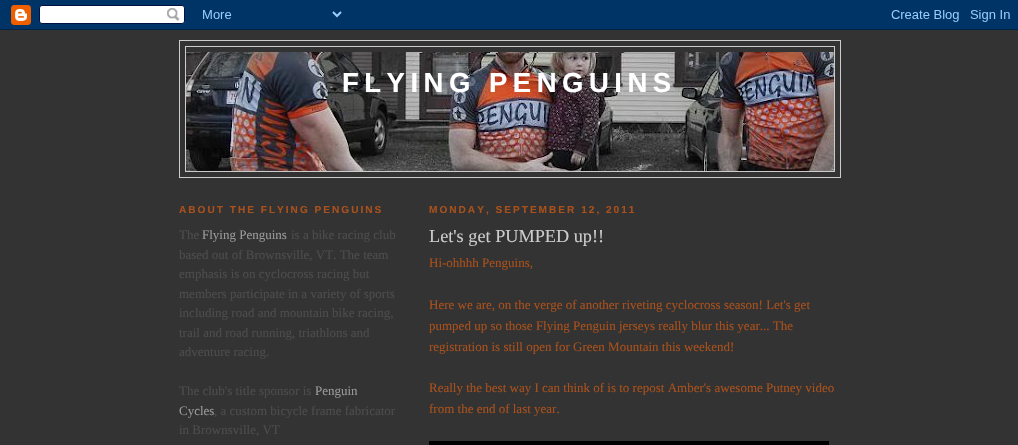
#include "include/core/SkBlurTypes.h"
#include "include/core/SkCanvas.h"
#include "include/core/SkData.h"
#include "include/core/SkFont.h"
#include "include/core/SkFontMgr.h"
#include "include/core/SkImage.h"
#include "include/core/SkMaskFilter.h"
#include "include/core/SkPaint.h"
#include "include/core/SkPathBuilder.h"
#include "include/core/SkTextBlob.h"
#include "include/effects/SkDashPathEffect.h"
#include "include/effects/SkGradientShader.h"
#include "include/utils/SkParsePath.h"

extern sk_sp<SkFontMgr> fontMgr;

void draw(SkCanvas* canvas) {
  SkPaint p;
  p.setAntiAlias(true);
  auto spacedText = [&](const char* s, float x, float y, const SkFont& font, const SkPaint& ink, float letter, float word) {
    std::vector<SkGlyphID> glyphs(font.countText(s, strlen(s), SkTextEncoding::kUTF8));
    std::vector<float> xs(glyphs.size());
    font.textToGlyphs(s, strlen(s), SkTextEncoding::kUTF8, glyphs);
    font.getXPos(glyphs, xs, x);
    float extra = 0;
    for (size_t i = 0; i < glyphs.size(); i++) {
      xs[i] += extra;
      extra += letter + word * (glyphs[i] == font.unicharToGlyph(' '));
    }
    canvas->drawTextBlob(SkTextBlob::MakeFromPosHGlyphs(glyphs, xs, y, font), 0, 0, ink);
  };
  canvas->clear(SkColorSetRGB(51, 51, 51));
  canvas->drawImageRect(SkImages::DeferredFromEncodedData(SkData::MakeFromFileName("images/1.png")), SkRect::MakeLTRB(0, 0, 1018, 30), SkSamplingOptions());
  p.setStyle(SkPaint::kStroke_Style);
  p.setStrokeWidth(1);
  p.setColor(SkColorSetRGB(204, 204, 204));
  canvas->drawRect(SkRect::MakeLTRB(179.5f, 40.5f, 840.5f, 177.5f), p);
  canvas->drawRect(SkRect::MakeLTRB(185.5f, 46.5f, 834.5f, 171.5f), p);
  canvas->drawImageRect(SkImages::DeferredFromEncodedData(SkData::MakeFromFileName("images/2.png")), SkRect::MakeLTRB(186, 52, 834, 171), SkSamplingOptions());
  p.setStyle(SkPaint::kFill_Style);
  p.setColor(SK_ColorBLACK);
  canvas->drawRect(SkRect::MakeLTRB(429, 441, 829, 445), p);
  SkFont font1(fontMgr->matchFamilyStyle("Liberation Sans", SkFontStyle::Bold()), 27.5f);
  font1.setSubpixel(true);
  p.setColor(SK_ColorWHITE);
  spacedText("FLYING PENGUINS", 342, 92, font1, p, 5.5f, 0);
  SkFont font2(fontMgr->matchFamilyStyle("Liberation Sans", SkFontStyle::Bold()), 10.1f);
  font2.setSubpixel(true);
  p.setColor(SkColorSetRGB(169, 80, 27));
  spacedText("ABOUT THE FLYING PENGUINS", 179, 213, font2, p, 2, 0);
  SkFont font3(fontMgr->matchFamilyStyle("Liberation Serif", SkFontStyle::Normal()), 13);
  font3.setSubpixel(true);
  p.setColor(SkColorSetRGB(76, 76, 76));
  canvas->drawString("The", 179, 239, font3, p);
  p.setColor(SkColorSetRGB(153, 153, 153));
  canvas->drawString("Flying Penguins", 202, 239, font3, p);
  p.setColor(SkColorSetRGB(76, 76, 76));
  canvas->drawString("is a bike racing club", 291, 239, font3, p);
  canvas->drawString("based out of Brownsville, VT. The team", 179, 259, font3, p);
  canvas->drawString("emphasis is on cyclocross racing but", 179, 278, font3, p);
  canvas->drawString("members participate in a variety of sports", 179, 298, font3, p);
  canvas->drawString("including road and mountain bike racing,", 179, 317, font3, p);
  canvas->drawString("trail and road running, triathlons and", 179, 337, font3, p);
  canvas->drawString("adventure racing.", 179, 356, font3, p);
  canvas->drawString("The club's title sponsor is", 179, 395, font3, p);
  p.setColor(SkColorSetRGB(153, 153, 153));
  canvas->drawString("Penguin", 315, 395, font3, p);
  canvas->drawString("Cycles", 179, 415, font3, p);
  p.setColor(SkColorSetRGB(76, 76, 76));
  canvas->drawString(", a custom bicycle frame fabricator", 214, 415, font3, p);
  canvas->drawString("in Brownsville, VT", 179, 434, font3, p);
  p.setColor(SkColorSetRGB(169, 80, 27));
  spacedText("MONDAY, SEPTEMBER 12, 2011", 429, 213, font2, p, 2, 0);
  SkFont font4(fontMgr->matchFamilyStyle("Liberation Serif", SkFontStyle::Normal()), 18.25f);
  font4.setSubpixel(true);
  p.setColor(SkColorSetRGB(204, 204, 204));
  canvas->drawString("Let's get PUMPED up!!", 429, 242, font4, p);
  p.setColor(SkColorSetRGB(169, 80, 27));
  canvas->drawString("Hi-ohhhh Penguins,", 429, 267, font3, p);
  canvas->drawString("Here we are, on the verge of another riveting cyclocross season! Let's get", 429, 309, font3, p);
  canvas->drawString("pumped up so those Flying Penguin jerseys really blur this year... The", 429, 330, font3, p);
  canvas->drawString("registration is still open for Green Mountain this weekend!", 429, 351, font3, p);
  canvas->drawString("Really the best way I can think of is to repost Amber's awesome Putney video", 429, 392, font3, p);
  canvas->drawString("from the end of last year.", 429, 413, font3, p);
}
